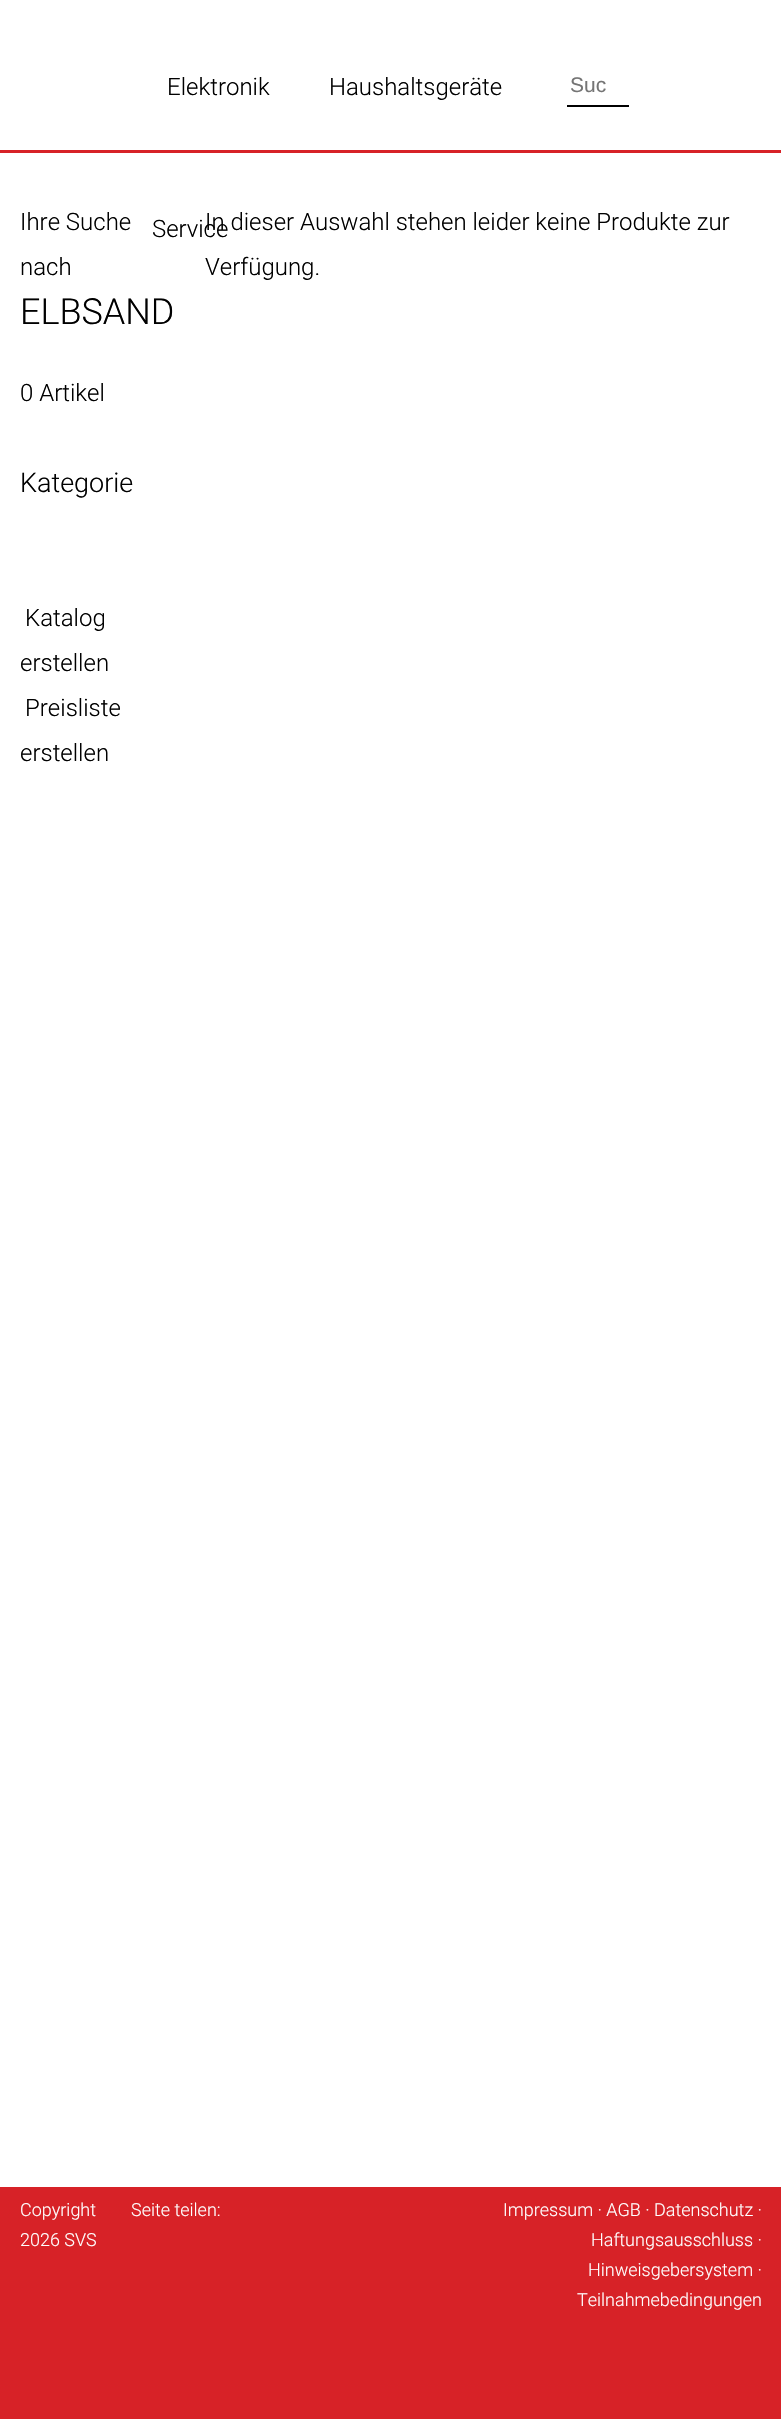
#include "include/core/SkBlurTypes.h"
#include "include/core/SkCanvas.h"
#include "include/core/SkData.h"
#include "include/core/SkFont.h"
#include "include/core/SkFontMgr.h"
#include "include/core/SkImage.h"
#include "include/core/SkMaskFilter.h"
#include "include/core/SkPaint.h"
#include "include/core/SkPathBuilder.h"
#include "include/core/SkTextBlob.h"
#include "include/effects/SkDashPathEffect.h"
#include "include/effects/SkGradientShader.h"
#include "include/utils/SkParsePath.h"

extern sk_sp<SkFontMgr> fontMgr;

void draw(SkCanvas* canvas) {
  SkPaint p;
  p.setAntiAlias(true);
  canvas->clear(SK_ColorWHITE);
  p.setColor(SkColorSetRGB(215, 34, 39));
  canvas->drawRect(SkRect::MakeLTRB(0, 150, 781, 153), p);
  p.setColor(SK_ColorBLACK);
  canvas->drawRect(SkRect::MakeLTRB(567, 105, 629, 107), p);
  p.setColor(SkColorSetRGB(215, 34, 39));
  canvas->drawRect(SkRect::MakeLTRB(0, 2187, 781, 2419), p);
  SkFont font1(fontMgr->matchFamilyStyle("Roboto", SkFontStyle(300, SkFontStyle::kNormal_Width, SkFontStyle::kUpright_Slant)), 24);
  font1.setSubpixel(true);
  p.setColor(SK_ColorBLACK);
  canvas->drawString("Elektronik", 167, 95, font1, p);
  canvas->drawString("Haushaltsgeräte", 329, 95, font1, p);
  SkFont font2(fontMgr->matchFamilyStyle("Liberation Sans", SkFontStyle::Normal()), 21);
  font2.setSubpixel(true);
  p.setColor(SkColorSetRGB(117, 117, 117));
  canvas->drawString("Suc", 570, 92, font2, p);
  p.setColor(SK_ColorBLACK);
  canvas->drawString("Ihre Suche", 20, 230, font1, p);
  canvas->drawString("nach", 20, 275, font1, p);
  SkFont font3(fontMgr->matchFamilyStyle("Roboto", SkFontStyle(300, SkFontStyle::kNormal_Width, SkFontStyle::kUpright_Slant)), 36);
  font3.setSubpixel(true);
  canvas->drawString("ELBSAND", 20, 324, font3, p);
  canvas->drawString("0 Artikel", 20, 401, font1, p);
  SkFont font4(fontMgr->matchFamilyStyle("Roboto", SkFontStyle(300, SkFontStyle::kNormal_Width, SkFontStyle::kUpright_Slant)), 27);
  font4.setSubpixel(true);
  canvas->drawString("Kategorie", 20, 492, font4, p);
  canvas->drawString("Katalog", 25, 626, font1, p);
  canvas->drawString("erstellen", 20, 671, font1, p);
  canvas->drawString("Preisliste", 25, 716, font1, p);
  canvas->drawString("erstellen", 20, 761, font1, p);
  canvas->drawString("In dieser Auswahl stehen leider keine Produkte zur", 205, 230, font1, p);
  canvas->drawString("Service", 152, 237, font1, p);
  canvas->drawString("Verfügung.", 205, 275, font1, p);
  SkFont font5(fontMgr->matchFamilyStyle("Roboto", SkFontStyle(300, SkFontStyle::kNormal_Width, SkFontStyle::kUpright_Slant)), 18);
  font5.setSubpixel(true);
  p.setColor(SK_ColorWHITE);
  canvas->drawString("Copyright", 20, 2216, font5, p);
  canvas->drawString("2026 SVS", 20, 2246, font5, p);
  canvas->drawString("Seite teilen:", 131, 2216, font5, p);
  canvas->drawString("Impressum · AGB · Datenschutz ·", 503, 2216, font5, p);
  canvas->drawString("Haftungsausschluss ·", 591, 2246, font5, p);
  canvas->drawString("Hinweisgebersystem ·", 588, 2276, font5, p);
  canvas->drawString("Teilnahmebedingungen", 577, 2306, font5, p);
}
